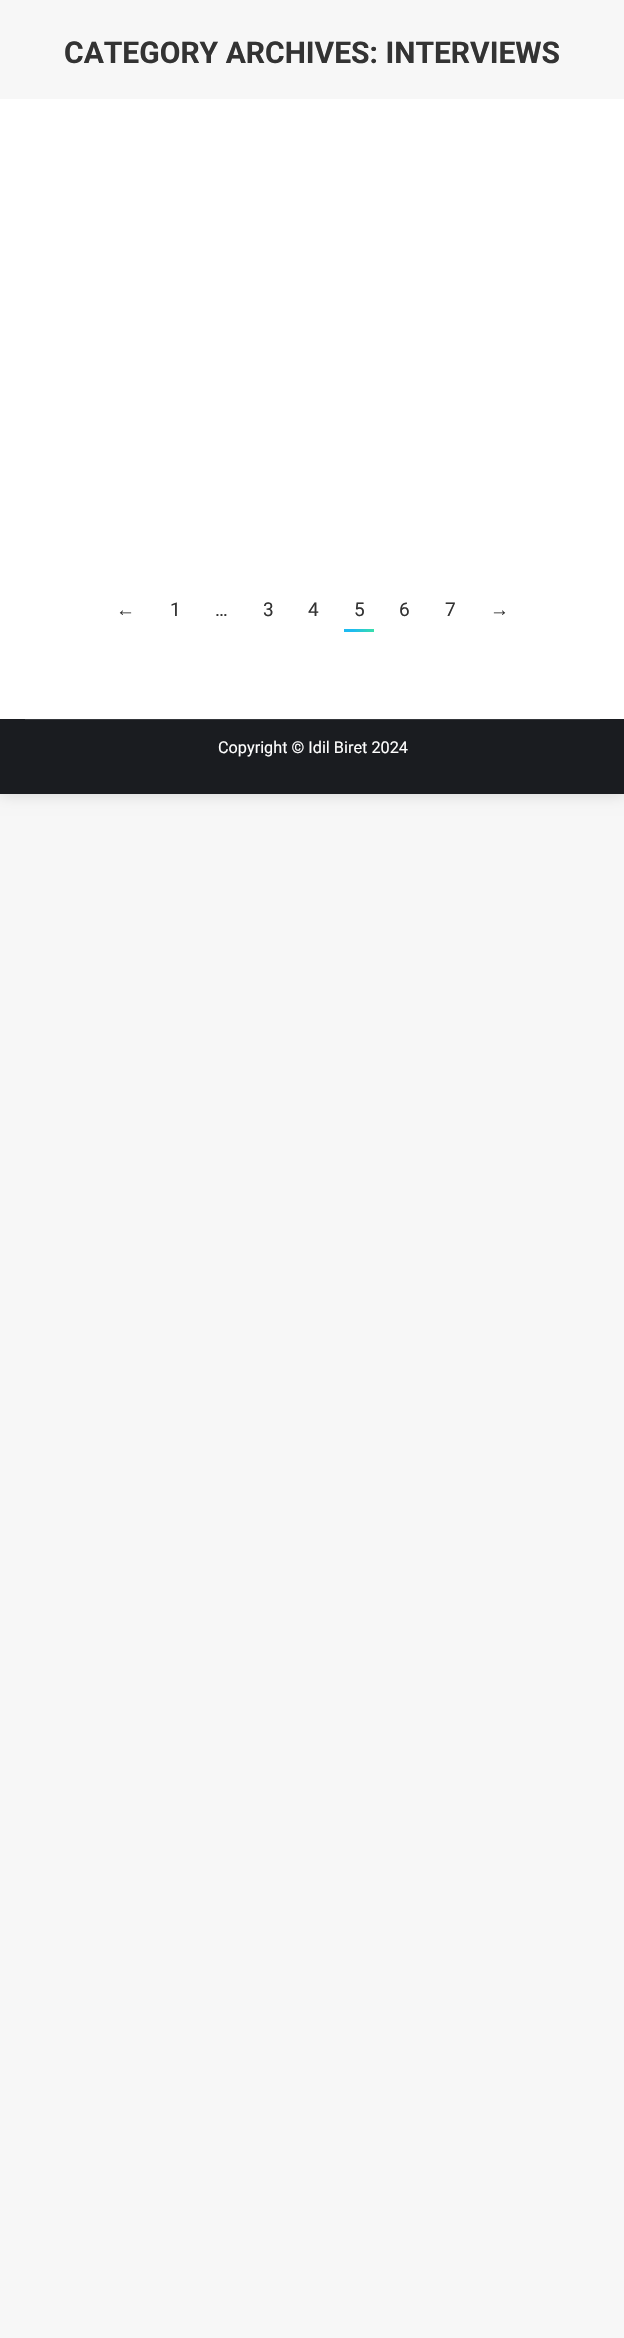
#include "include/core/SkBlurTypes.h"
#include "include/core/SkCanvas.h"
#include "include/core/SkData.h"
#include "include/core/SkFont.h"
#include "include/core/SkFontMgr.h"
#include "include/core/SkImage.h"
#include "include/core/SkMaskFilter.h"
#include "include/core/SkPaint.h"
#include "include/core/SkPathBuilder.h"
#include "include/core/SkTextBlob.h"
#include "include/effects/SkDashPathEffect.h"
#include "include/effects/SkGradientShader.h"
#include "include/utils/SkParsePath.h"

extern sk_sp<SkFontMgr> fontMgr;

void draw(SkCanvas* canvas) {
  SkPaint p;
  p.setAntiAlias(true);
  canvas->clear(SkColorSetRGB(247, 247, 247));
  p.setColor(SkColorSetARGB(38, 0, 0, 0));
  p.setMaskFilter(SkMaskFilter::MakeBlur(kNormal_SkBlurStyle, 7.5f));
  canvas->drawRect(SkRect::MakeLTRB(0, 0, 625, 794), p);
  p.setMaskFilter(nullptr);
  p.setColor(SK_ColorWHITE);
  canvas->drawRect(SkRect::MakeLTRB(0, 99, 624, 719), p);
  p.setColor(SkColorSetRGB(247, 247, 247));
  canvas->drawRect(SkRect::MakeLTRB(0, 0, 624, 99), p);
  {
    const SkColor colors[] = {SkColorSetRGB(30, 187, 240), SkColorSetRGB(57, 223, 170)};
    const float stops[] = {0.3f, 1};
    const SkPoint ends[] = {{344, 630}, {374, 630}};
    p.setShader(SkGradientShader::MakeLinear(ends, colors, stops, 2, SkTileMode::kClamp));
    p.setAlpha(255);
  }
  canvas->drawRect(SkRect::MakeLTRB(344, 629, 374, 632), p);
  p.setShader(nullptr);
  p.setColor(SkColorSetRGB(26, 28, 32));
  canvas->drawRect(SkRect::MakeLTRB(0, 719, 624, 794), p);
  p.setColor(SkColorSetRGB(53, 55, 59));
  canvas->drawRect(SkRect::MakeLTRB(25, 719, 600, 720), p);
  SkFont font1(fontMgr->matchFamilyStyle("Roboto", SkFontStyle::Bold()), 30);
  font1.setSubpixel(true);
  p.setColor(SkColorSetRGB(51, 51, 51));
  canvas->drawString("CATEGORY ARCHIVES: INTERVIEWS", 64, 63, font1, p);
  SkFont font2(fontMgr->matchFamilyStyle("Liberation Sans", SkFontStyle::Normal()), 19);
  font2.setSubpixel(true);
  canvas->drawString("←", 116, 616, font2, p);
  SkFont font3(fontMgr->matchFamilyStyle("Roboto", SkFontStyle::Normal()), 19);
  font3.setSubpixel(true);
  canvas->drawString("1", 170, 616, font3, p);
  canvas->drawString("…", 215, 616, font3, p);
  canvas->drawString("3", 263, 616, font3, p);
  canvas->drawString("4", 308, 616, font3, p);
  canvas->drawString("5", 354, 616, font3, p);
  canvas->drawString("6", 399, 616, font3, p);
  canvas->drawString("7", 445, 616, font3, p);
  canvas->drawString("→", 490, 616, font2, p);
  SkFont font4(fontMgr->matchFamilyStyle("Roboto", SkFontStyle::Normal()), 16.25f);
  font4.setSubpixel(true);
  p.setColor(SK_ColorWHITE);
  canvas->drawString("Copyright © Idil Biret 2024", 218, 753, font4, p);
}
